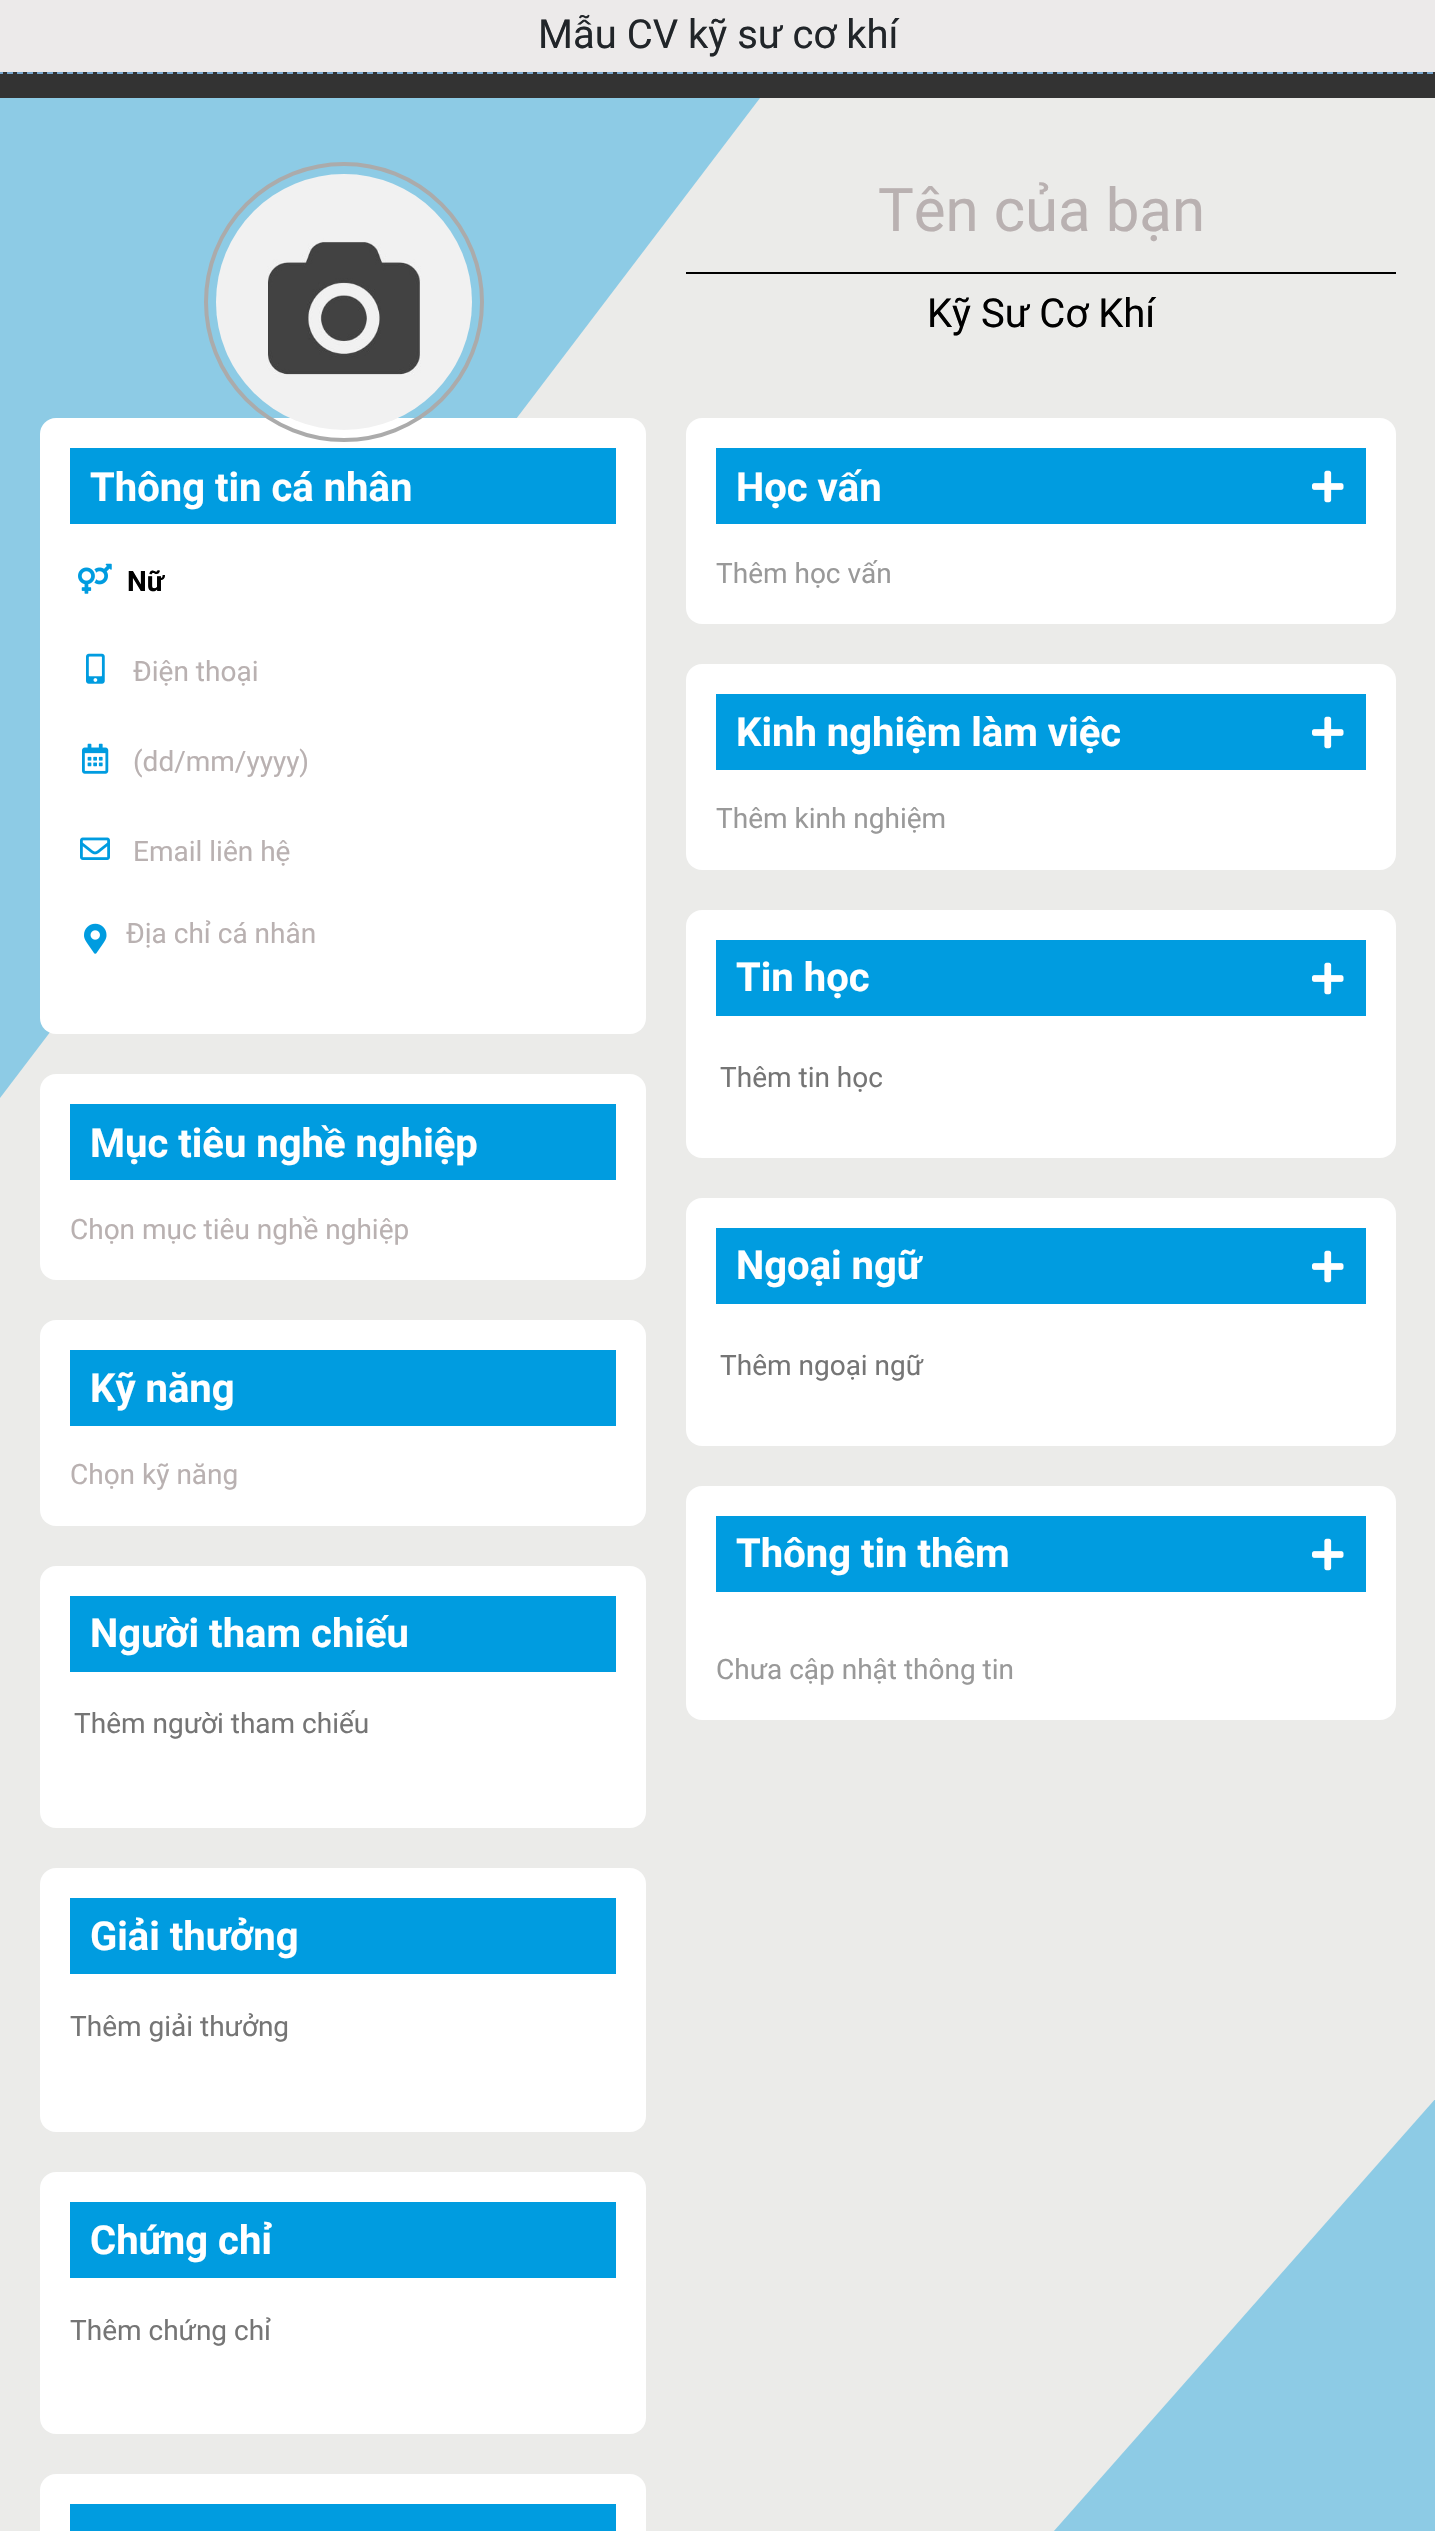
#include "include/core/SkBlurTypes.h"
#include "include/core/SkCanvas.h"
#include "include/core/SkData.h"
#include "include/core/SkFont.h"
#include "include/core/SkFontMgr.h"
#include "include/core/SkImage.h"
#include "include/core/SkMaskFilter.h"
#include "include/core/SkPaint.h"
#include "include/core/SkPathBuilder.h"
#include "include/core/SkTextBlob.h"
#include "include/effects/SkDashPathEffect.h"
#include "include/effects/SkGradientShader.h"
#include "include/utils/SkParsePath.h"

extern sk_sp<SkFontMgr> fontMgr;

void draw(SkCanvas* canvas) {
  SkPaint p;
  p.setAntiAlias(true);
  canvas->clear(SkColorSetRGB(51, 51, 51));
  p.setColor(SkColorSetRGB(236, 234, 234));
  canvas->drawRect(SkRect::MakeLTRB(0, 0, 1435, 72), p);
  p.setStyle(SkPaint::kStroke_Style);
  p.setStrokeWidth(2);
  p.setColor(SkColorSetRGB(119, 165, 204));
  p.setPathEffect(SkDashPathEffect::Make({{6, 4}}, 0));
  canvas->drawPath(SkPathBuilder().moveTo(-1, -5).lineTo(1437, -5).lineTo(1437, 73).lineTo(-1, 73).close().detach(), p);
  p.setPathEffect(nullptr);
  p.setStyle(SkPaint::kFill_Style);
  p.setColor(SkColorSetRGB(235, 235, 233));
  canvas->drawRect(SkRect::MakeLTRB(0, 98, 1435, 2531), p);
  p.setColor(SkColorSetRGB(141, 203, 229));
  canvas->drawPath(SkPathBuilder().moveTo(0, 1098).lineTo(0, 98).lineTo(760, 98).close().detach(), p);
  p.setColor(SK_ColorWHITE);
  canvas->drawRoundRect(SkRect::MakeLTRB(40, 418, 646, 1034), 16, 16, p);
  p.setStyle(SkPaint::kStroke_Style);
  p.setStrokeWidth(4);
  p.setColor(SkColorSetRGB(171, 171, 171));
  canvas->drawCircle(344, 302, 138, p);
  canvas->drawImageRect(SkImages::DeferredFromEncodedData(SkData::MakeFromFileName("images/1.png")), SkRect::MakeLTRB(216, 174, 472, 430), SkSamplingOptions());
  p.setStyle(SkPaint::kFill_Style);
  p.setColor(SkColorSetRGB(0, 156, 224));
  canvas->drawRect(SkRect::MakeLTRB(70, 448, 616, 524), p);
  canvas->drawImageRect(SkImages::DeferredFromEncodedData(SkData::MakeFromFileName("images/2.png")), SkRect::MakeLTRB(78, 563, 112, 594), SkSamplingOptions());
  canvas->drawImageRect(SkImages::DeferredFromEncodedData(SkData::MakeFromFileName("images/3.png")), SkRect::MakeLTRB(86, 653, 105, 684), SkSamplingOptions());
  canvas->drawImageRect(SkImages::DeferredFromEncodedData(SkData::MakeFromFileName("images/4.png")), SkRect::MakeLTRB(82, 743, 109, 774), SkSamplingOptions());
  canvas->drawImageRect(SkImages::DeferredFromEncodedData(SkData::MakeFromFileName("images/5.png")), SkRect::MakeLTRB(80, 837, 110, 860), SkSamplingOptions());
  canvas->drawImageRect(SkImages::DeferredFromEncodedData(SkData::MakeFromFileName("images/6.png")), SkRect::MakeLTRB(84, 923, 107, 954), SkSamplingOptions());
  p.setColor(SK_ColorWHITE);
  canvas->drawRoundRect(SkRect::MakeLTRB(40, 1074, 646, 1280), 16, 16, p);
  p.setColor(SkColorSetRGB(0, 156, 224));
  canvas->drawRect(SkRect::MakeLTRB(70, 1104, 616, 1180), p);
  p.setColor(SK_ColorWHITE);
  canvas->drawRoundRect(SkRect::MakeLTRB(40, 1320, 646, 1526), 16, 16, p);
  p.setColor(SkColorSetRGB(0, 156, 224));
  canvas->drawRect(SkRect::MakeLTRB(70, 1350, 616, 1426), p);
  p.setColor(SK_ColorWHITE);
  canvas->drawRoundRect(SkRect::MakeLTRB(40, 1566, 646, 1828), 16, 16, p);
  p.setColor(SkColorSetRGB(0, 156, 224));
  canvas->drawRect(SkRect::MakeLTRB(70, 1596, 616, 1672), p);
  p.setColor(SK_ColorWHITE);
  canvas->drawRoundRect(SkRect::MakeLTRB(40, 1868, 646, 2132), 16, 16, p);
  p.setColor(SkColorSetRGB(0, 156, 224));
  canvas->drawRect(SkRect::MakeLTRB(70, 1898, 616, 1974), p);
  p.setColor(SK_ColorWHITE);
  canvas->drawRoundRect(SkRect::MakeLTRB(40, 2172, 646, 2434), 16, 16, p);
  p.setColor(SkColorSetRGB(0, 156, 224));
  canvas->drawRect(SkRect::MakeLTRB(70, 2202, 616, 2278), p);
  p.setColor(SK_ColorWHITE);
  canvas->drawRoundRect(SkRect::MakeLTRB(40, 2474, 646, 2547), 16, 16, p);
  p.setColor(SkColorSetRGB(0, 156, 224));
  canvas->drawRect(SkRect::MakeLTRB(70, 2504, 616, 2531), p);
  p.setColor(SK_ColorBLACK);
  canvas->drawRect(SkRect::MakeLTRB(686, 272, 1396, 274), p);
  p.setColor(SK_ColorWHITE);
  canvas->drawRoundRect(SkRect::MakeLTRB(686, 418, 1396, 624), 16, 16, p);
  p.setColor(SkColorSetRGB(0, 156, 224));
  canvas->drawRect(SkRect::MakeLTRB(716, 448, 1366, 524), p);
  canvas->drawImageRect(SkImages::DeferredFromEncodedData(SkData::MakeFromFileName("images/7.png")), SkRect::MakeLTRB(1312, 470, 1344, 503), SkSamplingOptions());
  p.setColor(SK_ColorWHITE);
  canvas->drawRoundRect(SkRect::MakeLTRB(686, 664, 1396, 870), 16, 16, p);
  p.setColor(SkColorSetRGB(0, 156, 224));
  canvas->drawRect(SkRect::MakeLTRB(716, 694, 1366, 770), p);
  canvas->drawImageRect(SkImages::DeferredFromEncodedData(SkData::MakeFromFileName("images/7.png")), SkRect::MakeLTRB(1312, 716, 1344, 749), SkSamplingOptions());
  p.setColor(SK_ColorWHITE);
  canvas->drawRoundRect(SkRect::MakeLTRB(686, 910, 1396, 1158), 16, 16, p);
  p.setColor(SkColorSetRGB(0, 156, 224));
  canvas->drawRect(SkRect::MakeLTRB(716, 940, 1366, 1016), p);
  canvas->drawImageRect(SkImages::DeferredFromEncodedData(SkData::MakeFromFileName("images/7.png")), SkRect::MakeLTRB(1312, 962, 1344, 995), SkSamplingOptions());
  p.setColor(SK_ColorWHITE);
  canvas->drawRoundRect(SkRect::MakeLTRB(686, 1198, 1396, 1446), 16, 16, p);
  p.setColor(SkColorSetRGB(0, 156, 224));
  canvas->drawRect(SkRect::MakeLTRB(716, 1228, 1366, 1304), p);
  canvas->drawImageRect(SkImages::DeferredFromEncodedData(SkData::MakeFromFileName("images/7.png")), SkRect::MakeLTRB(1312, 1250, 1344, 1283), SkSamplingOptions());
  p.setColor(SK_ColorWHITE);
  canvas->drawRoundRect(SkRect::MakeLTRB(686, 1486, 1396, 1720), 16, 16, p);
  p.setColor(SkColorSetRGB(0, 156, 224));
  canvas->drawRect(SkRect::MakeLTRB(716, 1516, 1366, 1592), p);
  canvas->drawImageRect(SkImages::DeferredFromEncodedData(SkData::MakeFromFileName("images/7.png")), SkRect::MakeLTRB(1312, 1538, 1344, 1571), SkSamplingOptions());
  p.setColor(SkColorSetRGB(141, 203, 229));
  canvas->drawPath(SkPathBuilder().moveTo(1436, 2098).lineTo(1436, 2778).lineTo(836, 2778).close().detach(), p);
  SkFont font1(fontMgr->matchFamilyStyle("Roboto", SkFontStyle::Normal()), 40);
  font1.setSubpixel(true);
  p.setColor(SkColorSetRGB(33, 37, 41));
  canvas->drawString("Mẫu CV kỹ sư cơ khí", 538, 48, font1, p);
  SkFont font2(fontMgr->matchFamilyStyle("Roboto", SkFontStyle::Bold()), 40);
  font2.setSubpixel(true);
  p.setColor(SK_ColorWHITE);
  canvas->drawString("Thông tin cá nhân", 90, 501, font2, p);
  SkFont font3(fontMgr->matchFamilyStyle("Roboto", SkFontStyle::Bold()), 28);
  font3.setSubpixel(true);
  p.setColor(SK_ColorBLACK);
  canvas->drawString("Nữ", 127, 591, font3, p);
  SkFont font4(fontMgr->matchFamilyStyle("Roboto", SkFontStyle::Normal()), 28);
  font4.setSubpixel(true);
  p.setColor(SkColorSetRGB(185, 177, 177));
  canvas->drawString("Điện thoại", 133, 681, font4, p);
  canvas->drawString("(dd/mm/yyyy)", 133, 771, font4, p);
  canvas->drawString("Email liên hệ", 133, 861, font4, p);
  canvas->drawString("Địa chỉ cá nhân", 126, 943, font4, p);
  p.setColor(SK_ColorWHITE);
  canvas->drawString("Mục tiêu nghề nghiệp", 90, 1157, font2, p);
  p.setColor(SkColorSetRGB(185, 177, 177));
  canvas->drawString("Chọn mục tiêu nghề nghiệp", 70, 1239, font4, p);
  p.setColor(SK_ColorWHITE);
  canvas->drawString("Kỹ năng", 90, 1402, font2, p);
  p.setColor(SkColorSetRGB(185, 177, 177));
  canvas->drawString("Chọn kỹ năng", 70, 1484, font4, p);
  p.setColor(SK_ColorWHITE);
  canvas->drawString("Người tham chiếu", 90, 1647, font2, p);
  p.setColor(SkColorSetRGB(117, 117, 117));
  canvas->drawString("Thêm người tham chiếu", 74, 1733, font4, p);
  p.setColor(SK_ColorWHITE);
  canvas->drawString("Giải thưởng", 90, 1950, font2, p);
  p.setColor(SkColorSetRGB(117, 117, 117));
  canvas->drawString("Thêm giải thưởng", 70, 2036, font4, p);
  p.setColor(SK_ColorWHITE);
  canvas->drawString("Chứng chỉ", 90, 2254, font2, p);
  p.setColor(SkColorSetRGB(117, 117, 117));
  canvas->drawString("Thêm chứng chỉ", 70, 2340, font4, p);
  SkFont font5(fontMgr->matchFamilyStyle("Roboto", SkFontStyle::Normal()), 60);
  font5.setSubpixel(true);
  p.setColor(SkColorSetRGB(185, 177, 177));
  canvas->drawString("Tên của bạn", 878, 231, font5, p);
  p.setColor(SK_ColorBLACK);
  canvas->drawString("Kỹ Sư Cơ Khí", 927, 327, font1, p);
  p.setColor(SK_ColorWHITE);
  canvas->drawString("Học vấn", 736, 501, font2, p);
  p.setColor(SkColorSetRGB(153, 153, 153));
  canvas->drawString("Thêm học vấn", 716, 583, font4, p);
  p.setColor(SK_ColorWHITE);
  canvas->drawString("Kinh nghiệm làm việc", 736, 746, font2, p);
  p.setColor(SkColorSetRGB(153, 153, 153));
  canvas->drawString("Thêm kinh nghiệm", 716, 828, font4, p);
  p.setColor(SK_ColorWHITE);
  canvas->drawString("Tin học", 736, 991, font2, p);
  p.setColor(SkColorSetRGB(117, 117, 117));
  canvas->drawString("Thêm tin học", 720, 1087, font4, p);
  p.setColor(SK_ColorWHITE);
  canvas->drawString("Ngoại ngữ", 736, 1279, font2, p);
  p.setColor(SkColorSetRGB(117, 117, 117));
  canvas->drawString("Thêm ngoại ngữ", 720, 1375, font4, p);
  p.setColor(SK_ColorWHITE);
  canvas->drawString("Thông tin thêm", 736, 1567, font2, p);
  p.setColor(SkColorSetRGB(153, 153, 153));
  canvas->drawString("Chưa cập nhật thông tin", 716, 1679, font4, p);
}
